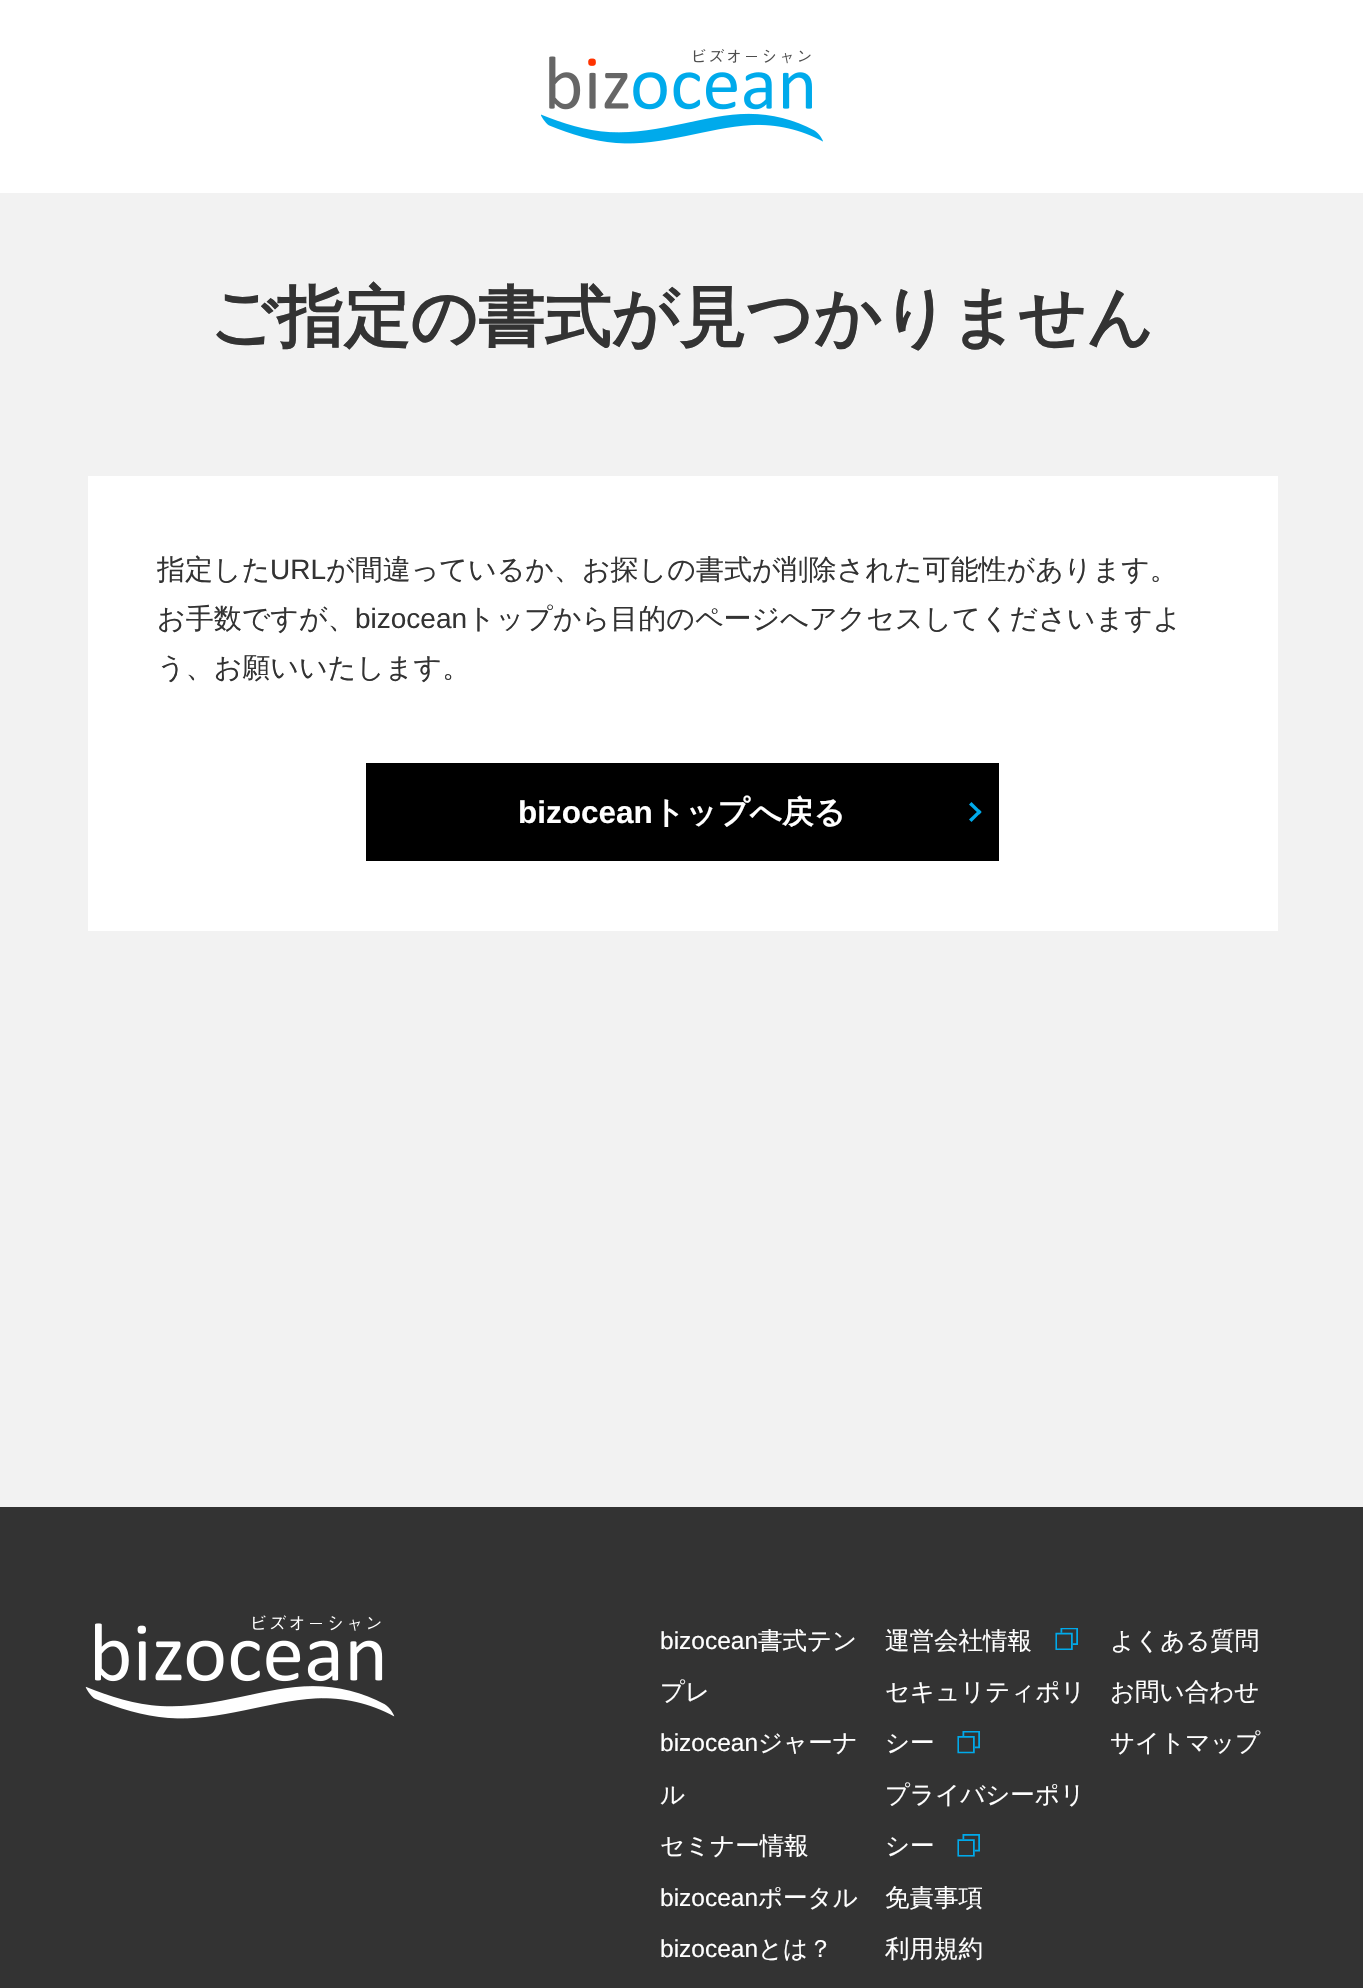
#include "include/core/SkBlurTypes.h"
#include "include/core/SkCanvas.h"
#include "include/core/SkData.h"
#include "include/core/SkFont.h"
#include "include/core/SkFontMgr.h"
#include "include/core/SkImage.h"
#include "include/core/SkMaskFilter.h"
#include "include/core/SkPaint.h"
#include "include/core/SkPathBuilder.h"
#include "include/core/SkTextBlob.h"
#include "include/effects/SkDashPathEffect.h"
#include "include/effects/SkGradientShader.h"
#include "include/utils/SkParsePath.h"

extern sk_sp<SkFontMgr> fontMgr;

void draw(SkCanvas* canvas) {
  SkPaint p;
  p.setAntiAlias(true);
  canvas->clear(SkColorSetRGB(242, 242, 242));
  p.setColor(SK_ColorWHITE);
  canvas->drawRect(SkRect::MakeLTRB(0, 0, 1363, 193), p);
  canvas->drawImageRect(SkImages::DeferredFromEncodedData(SkData::MakeFromFileName("images/1.png")), SkRect::MakeLTRB(541, 49, 823, 144), SkSamplingOptions());
  canvas->drawRect(SkRect::MakeLTRB(88, 476, 1278, 931), p);
  p.setColor(SK_ColorBLACK);
  canvas->drawRect(SkRect::MakeLTRB(366, 763, 999, 861), p);
  p.setColor(SkColorSetRGB(0, 170, 235));
  canvas->drawPath(SkPathBuilder().moveTo(971.5f, 802).lineTo(981.5f, 812).lineTo(979.5f, 814.5f).lineTo(969, 804.5f).close().detach(), p);
  canvas->drawPath(SkPathBuilder().moveTo(979.5f, 809.5f).lineTo(981.5f, 812).lineTo(971.5f, 822).lineTo(969, 819.5f).close().detach(), p);
  p.setColor(SkColorSetRGB(51, 51, 51));
  canvas->drawRect(SkRect::MakeLTRB(0, 1507, 1363, 1988), p);
  canvas->drawImageRect(SkImages::DeferredFromEncodedData(SkData::MakeFromFileName("images/2.png")), SkRect::MakeLTRB(85, 1615, 395, 1719), SkSamplingOptions());
  canvas->drawImageRect(SkImages::DeferredFromEncodedData(SkData::MakeFromFileName("images/3.png")), SkRect::MakeLTRB(1055, 1628, 1078, 1650), SkSamplingOptions());
  canvas->drawImageRect(SkImages::DeferredFromEncodedData(SkData::MakeFromFileName("images/4.png")), SkRect::MakeLTRB(957, 1731, 980, 1754), SkSamplingOptions());
  canvas->drawImageRect(SkImages::DeferredFromEncodedData(SkData::MakeFromFileName("images/5.png")), SkRect::MakeLTRB(957, 1834, 980, 1857), SkSamplingOptions());
  SkFont font1(fontMgr->matchFamilyStyle("WenQuanYi Zen Hei", SkFontStyle::Bold()), 66.5f);
  font1.setSubpixel(true);
  canvas->drawString("ご指定の書式が見つかりません", 209, 340, font1, p);
  SkFont font2(fontMgr->matchFamilyStyle("WenQuanYi Zen Hei", SkFontStyle(500, SkFontStyle::kNormal_Width, SkFontStyle::kUpright_Slant)), 28);
  font2.setSubpixel(true);
  canvas->drawString("指定した", 157, 579, font2, p);
  SkFont font3(fontMgr->matchFamilyStyle("Liberation Sans", SkFontStyle::Normal()), 28);
  font3.setSubpixel(true);
  canvas->drawString("URL", 270, 579, font3, p);
  canvas->drawString("が間違っているか、お探しの書式が削除された可能性があります。", 326, 579, font2, p);
  canvas->drawString("お手数ですが、", 157, 628, font2, p);
  canvas->drawString("bizocean", 355, 628, font3, p);
  canvas->drawString("トップから目的のページへアクセスしてくださいますよ", 467, 628, font2, p);
  canvas->drawString("う、お願いいたします。", 157, 677, font2, p);
  SkFont font4(fontMgr->matchFamilyStyle("Liberation Sans", SkFontStyle::Bold()), 31.5f);
  font4.setSubpixel(true);
  p.setColor(SK_ColorWHITE);
  canvas->drawString("bizocean", 518, 823, font4, p);
  SkFont font5(fontMgr->matchFamilyStyle("WenQuanYi Zen Hei", SkFontStyle::Bold()), 31.5f);
  font5.setSubpixel(true);
  canvas->drawString("トップへ戻る", 653, 823, font5, p);
  SkFont font6(fontMgr->matchFamilyStyle("Liberation Sans", SkFontStyle::Normal()), 24.5f);
  font6.setSubpixel(true);
  canvas->drawString("bizocean", 660, 1649, font6, p);
  SkFont font7(fontMgr->matchFamilyStyle("WenQuanYi Zen Hei", SkFontStyle(500, SkFontStyle::kNormal_Width, SkFontStyle::kUpright_Slant)), 24.5f);
  font7.setSubpixel(true);
  canvas->drawString("書式テン", 758, 1649, font7, p);
  canvas->drawString("プレ", 660, 1700, font7, p);
  canvas->drawString("bizocean", 660, 1751, font6, p);
  canvas->drawString("ジャーナ", 758, 1751, font7, p);
  canvas->drawString("ル", 660, 1803, font7, p);
  canvas->drawString("セミナー情報", 660, 1854, font7, p);
  canvas->drawString("bizocean", 660, 1906, font6, p);
  canvas->drawString("ポータル", 758, 1906, font7, p);
  canvas->drawString("bizocean", 660, 1957, font6, p);
  canvas->drawString("とは？", 758, 1957, font7, p);
  canvas->drawString("運営会社情報", 885, 1649, font7, p);
  canvas->drawString("セキュリティポリ", 885, 1700, font7, p);
  canvas->drawString("シー", 885, 1751, font7, p);
  canvas->drawString("プライバシーポリ", 885, 1803, font7, p);
  canvas->drawString("シー", 885, 1854, font7, p);
  canvas->drawString("免責事項", 885, 1906, font7, p);
  canvas->drawString("利用規約", 885, 1957, font7, p);
  canvas->drawString("よくある質問", 1110, 1649, font7, p);
  canvas->drawString("お問い合わせ", 1110, 1700, font7, p);
  canvas->drawString("サイトマップ", 1110, 1751, font7, p);
}
